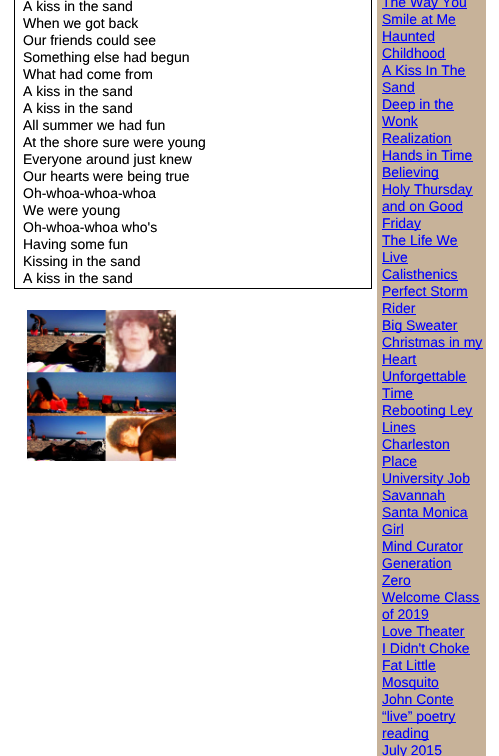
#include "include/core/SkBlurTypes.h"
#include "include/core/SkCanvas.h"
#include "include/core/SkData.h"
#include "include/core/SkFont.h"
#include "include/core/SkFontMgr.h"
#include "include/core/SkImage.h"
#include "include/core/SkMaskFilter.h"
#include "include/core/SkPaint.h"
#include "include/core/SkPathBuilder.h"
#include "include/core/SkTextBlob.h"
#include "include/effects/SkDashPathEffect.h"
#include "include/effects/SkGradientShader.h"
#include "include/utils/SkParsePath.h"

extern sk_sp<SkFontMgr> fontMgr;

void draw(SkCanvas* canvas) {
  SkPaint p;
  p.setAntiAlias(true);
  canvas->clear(SK_ColorWHITE);
  p.setStyle(SkPaint::kStroke_Style);
  p.setStrokeWidth(1);
  p.setColor(SK_ColorBLACK);
  canvas->drawRect(SkRect::MakeLTRB(14.5f, -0.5f, 371.5f, 288.5f), p);
  p.setStyle(SkPaint::kFill_Style);
  p.setColor(SkColorSetRGB(199, 178, 153));
  canvas->drawRect(SkRect::MakeLTRB(377, 0, 486, 756), p);
  p.setColor(SkColorSetRGB(0, 0, 255));
  canvas->drawRect(SkRect::MakeLTRB(382, 8, 467, 9), p);
  canvas->drawRect(SkRect::MakeLTRB(382, 25, 456, 26), p);
  canvas->drawRect(SkRect::MakeLTRB(382, 42, 435, 43), p);
  canvas->drawRect(SkRect::MakeLTRB(382, 59, 446, 60), p);
  canvas->drawRect(SkRect::MakeLTRB(382, 76, 466, 77), p);
  canvas->drawRect(SkRect::MakeLTRB(382, 93, 415, 94), p);
  canvas->drawRect(SkRect::MakeLTRB(382, 110, 454, 111), p);
  canvas->drawRect(SkRect::MakeLTRB(382, 127, 418, 128), p);
  canvas->drawRect(SkRect::MakeLTRB(382, 144, 452, 145), p);
  canvas->drawRect(SkRect::MakeLTRB(382, 161, 473, 162), p);
  canvas->drawRect(SkRect::MakeLTRB(382, 178, 439, 179), p);
  canvas->drawRect(SkRect::MakeLTRB(382, 195, 473, 196), p);
  canvas->drawRect(SkRect::MakeLTRB(382, 212, 463, 213), p);
  canvas->drawRect(SkRect::MakeLTRB(382, 229, 421, 230), p);
  canvas->drawRect(SkRect::MakeLTRB(382, 246, 458, 247), p);
  canvas->drawRect(SkRect::MakeLTRB(382, 263, 408, 264), p);
  canvas->drawRect(SkRect::MakeLTRB(382, 280, 458, 281), p);
  canvas->drawRect(SkRect::MakeLTRB(382, 297, 468, 298), p);
  canvas->drawRect(SkRect::MakeLTRB(382, 314, 416, 315), p);
  canvas->drawRect(SkRect::MakeLTRB(382, 331, 458, 332), p);
  canvas->drawRect(SkRect::MakeLTRB(382, 348, 483, 349), p);
  canvas->drawRect(SkRect::MakeLTRB(382, 365, 417, 366), p);
  canvas->drawRect(SkRect::MakeLTRB(382, 382, 467, 383), p);
  canvas->drawRect(SkRect::MakeLTRB(382, 399, 414, 400), p);
  canvas->drawRect(SkRect::MakeLTRB(382, 416, 473, 417), p);
  canvas->drawRect(SkRect::MakeLTRB(382, 433, 416, 434), p);
  canvas->drawRect(SkRect::MakeLTRB(382, 450, 450, 451), p);
  canvas->drawRect(SkRect::MakeLTRB(382, 467, 417, 468), p);
  canvas->drawRect(SkRect::MakeLTRB(382, 484, 470, 485), p);
  canvas->drawRect(SkRect::MakeLTRB(382, 501, 446, 502), p);
  canvas->drawRect(SkRect::MakeLTRB(382, 518, 468, 519), p);
  canvas->drawRect(SkRect::MakeLTRB(382, 535, 404, 536), p);
  canvas->drawRect(SkRect::MakeLTRB(382, 552, 463, 553), p);
  canvas->drawRect(SkRect::MakeLTRB(382, 569, 452, 570), p);
  canvas->drawRect(SkRect::MakeLTRB(382, 586, 411, 587), p);
  canvas->drawRect(SkRect::MakeLTRB(382, 603, 480, 604), p);
  canvas->drawRect(SkRect::MakeLTRB(382, 620, 429, 621), p);
  canvas->drawRect(SkRect::MakeLTRB(382, 637, 465, 638), p);
  canvas->drawRect(SkRect::MakeLTRB(382, 654, 470, 655), p);
  canvas->drawRect(SkRect::MakeLTRB(382, 671, 436, 672), p);
  canvas->drawRect(SkRect::MakeLTRB(382, 688, 439, 689), p);
  canvas->drawRect(SkRect::MakeLTRB(382, 705, 454, 706), p);
  canvas->drawRect(SkRect::MakeLTRB(382, 722, 456, 723), p);
  canvas->drawRect(SkRect::MakeLTRB(382, 739, 429, 740), p);
  canvas->drawImageRect(SkImages::DeferredFromEncodedData(SkData::MakeFromFileName("images/1.png")), SkRect::MakeLTRB(27, 310, 176, 461), SkSamplingOptions());
  SkFont font1(fontMgr->matchFamilyStyle("Liberation Sans", SkFontStyle::Normal()), 14);
  font1.setSubpixel(true);
  p.setColor(SK_ColorBLACK);
  canvas->drawString("A kiss in the sand", 23, 11, font1, p);
  canvas->drawString("When we got back", 23, 28, font1, p);
  canvas->drawString("Our friends could see", 23, 45, font1, p);
  canvas->drawString("Something else had begun", 23, 62, font1, p);
  canvas->drawString("What had come from", 23, 79, font1, p);
  canvas->drawString("A kiss in the sand", 23, 96, font1, p);
  canvas->drawString("A kiss in the sand", 23, 113, font1, p);
  canvas->drawString("All summer we had fun", 23, 130, font1, p);
  canvas->drawString("At the shore sure were young", 23, 147, font1, p);
  canvas->drawString("Everyone around just knew", 23, 164, font1, p);
  canvas->drawString("Our hearts were being true", 23, 181, font1, p);
  canvas->drawString("Oh-whoa-whoa-whoa", 23, 198, font1, p);
  canvas->drawString("We were young", 23, 215, font1, p);
  canvas->drawString("Oh-whoa-whoa who's", 23, 232, font1, p);
  canvas->drawString("Having some fun", 23, 249, font1, p);
  canvas->drawString("Kissing in the sand", 23, 266, font1, p);
  canvas->drawString("A kiss in the sand", 23, 283, font1, p);
  p.setColor(SkColorSetRGB(0, 0, 255));
  canvas->drawString("The Way You", 382, 7, font1, p);
  canvas->drawString("Smile at Me", 382, 24, font1, p);
  canvas->drawString("Haunted", 382, 41, font1, p);
  canvas->drawString("Childhood", 382, 58, font1, p);
  canvas->drawString("A Kiss In The", 382, 75, font1, p);
  canvas->drawString("Sand", 382, 92, font1, p);
  canvas->drawString("Deep in the", 382, 109, font1, p);
  canvas->drawString("Wonk", 382, 126, font1, p);
  canvas->drawString("Realization", 382, 143, font1, p);
  canvas->drawString("Hands in Time", 382, 160, font1, p);
  canvas->drawString("Believing", 382, 177, font1, p);
  canvas->drawString("Holy Thursday", 382, 194, font1, p);
  canvas->drawString("and on Good", 382, 211, font1, p);
  canvas->drawString("Friday", 382, 228, font1, p);
  canvas->drawString("The Life We", 382, 245, font1, p);
  canvas->drawString("Live", 382, 262, font1, p);
  canvas->drawString("Calisthenics", 382, 279, font1, p);
  canvas->drawString("Perfect Storm", 382, 296, font1, p);
  canvas->drawString("Rider", 382, 313, font1, p);
  canvas->drawString("Big Sweater", 382, 330, font1, p);
  canvas->drawString("Christmas in my", 382, 347, font1, p);
  canvas->drawString("Heart", 382, 364, font1, p);
  canvas->drawString("Unforgettable", 382, 381, font1, p);
  canvas->drawString("Time", 382, 398, font1, p);
  canvas->drawString("Rebooting Ley", 382, 415, font1, p);
  canvas->drawString("Lines", 382, 432, font1, p);
  canvas->drawString("Charleston", 382, 449, font1, p);
  canvas->drawString("Place", 382, 466, font1, p);
  canvas->drawString("University Job", 382, 483, font1, p);
  canvas->drawString("Savannah", 382, 500, font1, p);
  canvas->drawString("Santa Monica", 382, 517, font1, p);
  canvas->drawString("Girl", 382, 534, font1, p);
  canvas->drawString("Mind Curator", 382, 551, font1, p);
  canvas->drawString("Generation", 382, 568, font1, p);
  canvas->drawString("Zero", 382, 585, font1, p);
  canvas->drawString("Welcome Class", 382, 602, font1, p);
  canvas->drawString("of 2019", 382, 619, font1, p);
  canvas->drawString("Love Theater", 382, 636, font1, p);
  canvas->drawString("I Didn't Choke", 382, 653, font1, p);
  canvas->drawString("Fat Little", 382, 670, font1, p);
  canvas->drawString("Mosquito", 382, 687, font1, p);
  canvas->drawString("John Conte", 382, 704, font1, p);
  canvas->drawString("“live” poetry", 382, 721, font1, p);
  canvas->drawString("reading", 382, 738, font1, p);
  canvas->drawString("July 2015", 382, 755, font1, p);
}
